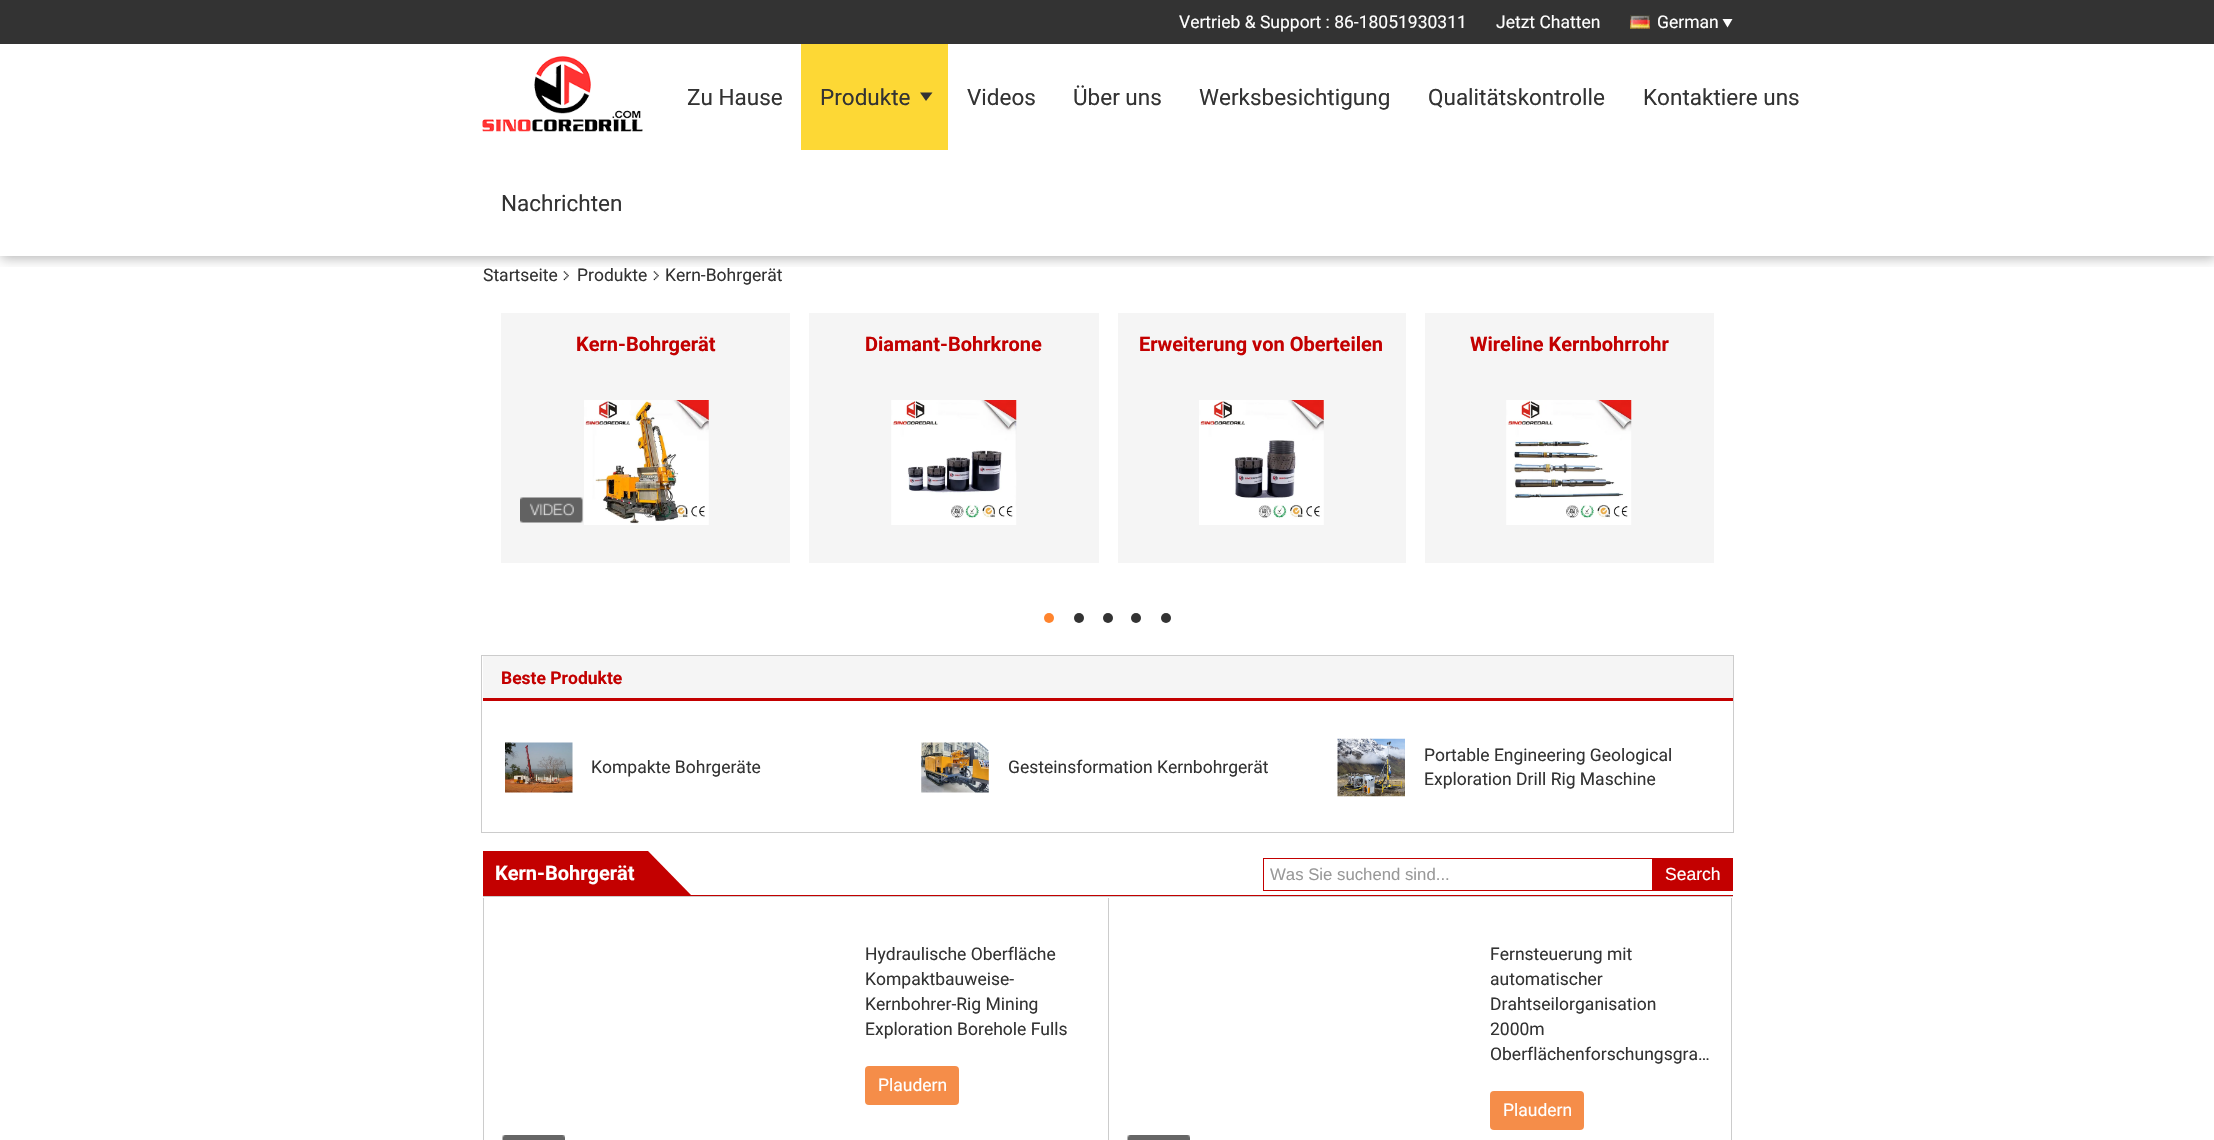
#include "include/core/SkBlurTypes.h"
#include "include/core/SkCanvas.h"
#include "include/core/SkData.h"
#include "include/core/SkFont.h"
#include "include/core/SkFontMgr.h"
#include "include/core/SkImage.h"
#include "include/core/SkMaskFilter.h"
#include "include/core/SkPaint.h"
#include "include/core/SkPathBuilder.h"
#include "include/core/SkTextBlob.h"
#include "include/effects/SkDashPathEffect.h"
#include "include/effects/SkGradientShader.h"
#include "include/utils/SkParsePath.h"

extern sk_sp<SkFontMgr> fontMgr;

void draw(SkCanvas* canvas) {
  SkPaint p;
  p.setAntiAlias(true);
  canvas->clear(SK_ColorWHITE);
  canvas->save();
  canvas->clipRect(SkRect::MakeLTRB(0, 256, 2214, 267));
  p.setColor(SkColorSetARGB(77, 0, 0, 0));
  p.setMaskFilter(SkMaskFilter::MakeBlur(kNormal_SkBlurStyle, 6));
  canvas->drawRect(SkRect::MakeLTRB(1, 1, 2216, 258), p);
  p.setMaskFilter(nullptr);
  canvas->restore();
  p.setColor(SkColorSetRGB(51, 51, 51));
  canvas->drawRect(SkRect::MakeLTRB(0, 0, 2214, 44), p);
  canvas->drawImageRect(SkImages::DeferredFromEncodedData(SkData::MakeFromFileName("images/1.png")), SkRect::MakeLTRB(1630, 15, 1650, 29), SkSamplingOptions());
  p.setColor(SK_ColorWHITE);
  canvas->drawPath(SkPathBuilder().moveTo(1722.5f, 19).lineTo(1732.5f, 19).lineTo(1727.5f, 27.5f).close().detach(), p);
  canvas->drawImageRect(SkImages::DeferredFromEncodedData(SkData::MakeFromFileName("images/2.png")), SkRect::MakeLTRB(482, 56, 643, 132), SkSamplingOptions());
  p.setColor(SkColorSetRGB(253, 216, 53));
  canvas->drawRect(SkRect::MakeLTRB(801, 44, 948, 150), p);
  p.setColor(SkColorSetRGB(51, 51, 51));
  canvas->drawPath(SkPathBuilder().moveTo(920, 92.5f).lineTo(932.5f, 92.5f).lineTo(926, 101).close().detach(), p);
  canvas->drawImageRect(SkImages::DeferredFromEncodedData(SkData::MakeFromFileName("images/3.png")), SkRect::MakeLTRB(563, 271, 569, 281), SkSamplingOptions());
  canvas->drawImageRect(SkImages::DeferredFromEncodedData(SkData::MakeFromFileName("images/4.png")), SkRect::MakeLTRB(653, 271, 659, 281), SkSamplingOptions());
  p.setColor(SkColorSetRGB(245, 245, 245));
  canvas->drawRect(SkRect::MakeLTRB(501, 313, 790, 563), p);
  canvas->drawImageRect(SkImages::DeferredFromEncodedData(SkData::MakeFromFileName("images/5.png")), SkRect::MakeLTRB(520, 497, 583, 523), SkSamplingOptions());
  canvas->drawImageRect(SkImages::DeferredFromEncodedData(SkData::MakeFromFileName("images/6.png")), SkRect::MakeLTRB(584, 400, 709, 525), SkSamplingOptions());
  canvas->drawRect(SkRect::MakeLTRB(809, 313, 1099, 563), p);
  canvas->drawImageRect(SkImages::DeferredFromEncodedData(SkData::MakeFromFileName("images/7.png")), SkRect::MakeLTRB(891, 400, 1017, 525), SkSamplingOptions());
  canvas->drawRect(SkRect::MakeLTRB(1118, 313, 1406, 563), p);
  canvas->drawImageRect(SkImages::DeferredFromEncodedData(SkData::MakeFromFileName("images/8.png")), SkRect::MakeLTRB(1199, 400, 1324, 525), SkSamplingOptions());
  canvas->drawRect(SkRect::MakeLTRB(1425, 313, 1714, 563), p);
  canvas->drawImageRect(SkImages::DeferredFromEncodedData(SkData::MakeFromFileName("images/9.png")), SkRect::MakeLTRB(1506, 400, 1632, 525), SkSamplingOptions());
  p.setColor(SkColorSetRGB(255, 132, 45));
  canvas->drawCircle(1049, 618, 5, p);
  p.setColor(SkColorSetRGB(51, 51, 51));
  canvas->drawCircle(1079, 618, 5, p);
  canvas->drawCircle(1108, 618, 5, p);
  canvas->drawCircle(1136, 618, 5, p);
  canvas->drawCircle(1166, 618, 5, p);
  p.setStyle(SkPaint::kStroke_Style);
  p.setStrokeWidth(1);
  p.setColor(SkColorSetRGB(204, 204, 204));
  canvas->drawRect(SkRect::MakeLTRB(481.5f, 655.5f, 1733.5f, 832.5f), p);
  p.setStyle(SkPaint::kFill_Style);
  p.setColor(SkColorSetRGB(245, 245, 245));
  canvas->drawRect(SkRect::MakeLTRB(483, 656, 1733, 698), p);
  p.setColor(SkColorSetRGB(195, 0, 0));
  canvas->drawRect(SkRect::MakeLTRB(483, 698, 1733, 701), p);
  canvas->drawImageRect(SkImages::DeferredFromEncodedData(SkData::MakeFromFileName("images/10.png")), SkRect::MakeLTRB(505, 742, 573, 793), SkSamplingOptions());
  canvas->drawImageRect(SkImages::DeferredFromEncodedData(SkData::MakeFromFileName("images/11.png")), SkRect::MakeLTRB(921, 742, 989, 793), SkSamplingOptions());
  canvas->drawImageRect(SkImages::DeferredFromEncodedData(SkData::MakeFromFileName("images/12.png")), SkRect::MakeLTRB(1337, 738, 1405, 797), SkSamplingOptions());
  canvas->drawRect(SkRect::MakeLTRB(483, 895, 1733, 896), p);
  canvas->drawRect(SkRect::MakeLTRB(483, 851, 648, 895), p);
  canvas->drawPath(SkPathBuilder().moveTo(691, 895).lineTo(648, 895).lineTo(648, 851).close().detach(), p);
  p.setStyle(SkPaint::kStroke_Style);
  canvas->drawRect(SkRect::MakeLTRB(1263.5f, 858.5f, 1652.5f, 890.5f), p);
  p.setStyle(SkPaint::kFill_Style);
  canvas->drawRect(SkRect::MakeLTRB(1653, 858, 1733, 891), p);
  p.setColor(SkColorSetRGB(204, 204, 204));
  canvas->drawRect(SkRect::MakeLTRB(483, 896, 1733, 897), p);
  canvas->drawRect(SkRect::MakeLTRB(483, 898, 484, 1140), p);
  p.setColor(SkColorSetRGB(245, 141, 73));
  canvas->drawRoundRect(SkRect::MakeLTRB(865, 1066, 959, 1105), 4, 4, p);
  canvas->drawImageRect(SkImages::DeferredFromEncodedData(SkData::MakeFromFileName("images/13.png")), SkRect::MakeLTRB(502, 1135, 565, 1140), SkSamplingOptions());
  p.setColor(SkColorSetRGB(204, 204, 204));
  canvas->drawRect(SkRect::MakeLTRB(1731, 898, 1732, 1140), p);
  canvas->drawRect(SkRect::MakeLTRB(1108, 898, 1109, 1140), p);
  p.setColor(SkColorSetRGB(245, 141, 73));
  canvas->drawRoundRect(SkRect::MakeLTRB(1490, 1091, 1584, 1130), 4, 4, p);
  canvas->drawImageRect(SkImages::DeferredFromEncodedData(SkData::MakeFromFileName("images/14.png")), SkRect::MakeLTRB(1127, 1135, 1190, 1140), SkSamplingOptions());
  SkFont font1(fontMgr->matchFamilyStyle("Roboto", SkFontStyle::Normal()), 17.5f);
  font1.setSubpixel(true);
  p.setColor(SK_ColorWHITE);
  canvas->drawString("Vertrieb & Support : 86-18051930311", 1179, 28, font1, p);
  canvas->drawString("Jetzt Chatten", 1496, 28, font1, p);
  canvas->drawString("German", 1657, 28, font1, p);
  SkFont font2(fontMgr->matchFamilyStyle("Roboto", SkFontStyle::Normal()), 22.5f);
  font2.setSubpixel(true);
  p.setColor(SkColorSetRGB(51, 51, 51));
  canvas->drawString("Zu Hause", 687, 105, font2, p);
  canvas->drawString("Produkte", 820, 105, font2, p);
  canvas->drawString("Videos", 967, 105, font2, p);
  canvas->drawString("Über uns", 1073, 105, font2, p);
  canvas->drawString("Werksbesichtigung", 1199, 105, font2, p);
  canvas->drawString("Qualitätskontrolle", 1428, 105, font2, p);
  canvas->drawString("Kontaktiere uns", 1643, 105, font2, p);
  canvas->drawString("Nachrichten", 501, 211, font2, p);
  canvas->drawString("Startseite", 483, 281, font1, p);
  canvas->drawString("Produkte", 577, 281, font1, p);
  canvas->drawString("Kern-Bohrgerät", 665, 281, font1, p);
  SkFont font3(fontMgr->matchFamilyStyle("Roboto", SkFontStyle::Bold()), 20);
  font3.setSubpixel(true);
  p.setColor(SkColorSetRGB(195, 0, 0));
  canvas->drawString("Kern-Bohrgerät", 576, 351, font3, p);
  canvas->drawString("Diamant-Bohrkrone", 865, 351, font3, p);
  canvas->drawString("Erweiterung von Oberteilen", 1139, 351, font3, p);
  canvas->drawString("Wireline Kernbohrrohr", 1470, 351, font3, p);
  SkFont font4(fontMgr->matchFamilyStyle("Roboto", SkFontStyle::Bold()), 17.5f);
  font4.setSubpixel(true);
  canvas->drawString("Beste Produkte", 501, 684, font4, p);
  p.setColor(SkColorSetRGB(51, 51, 51));
  canvas->drawString("Kompakte Bohrgeräte", 591, 773, font1, p);
  canvas->drawString("Gesteinsformation Kernbohrgerät", 1008, 773, font1, p);
  canvas->drawString("Portable Engineering Geological", 1424, 761, font1, p);
  canvas->drawString("Exploration Drill Rig Maschine", 1424, 785, font1, p);
  p.setColor(SK_ColorWHITE);
  canvas->drawString("Kern-Bohrgerät", 495, 880, font3, p);
  SkFont font5(fontMgr->matchFamilyStyle("Liberation Sans", SkFontStyle::Normal()), 16.75f);
  font5.setSubpixel(true);
  p.setColor(SkColorSetRGB(153, 153, 153));
  canvas->drawString("Was Sie suchend sind...", 1270, 880, font5, p);
  SkFont font6(fontMgr->matchFamilyStyle("Liberation Sans", SkFontStyle::Normal()), 17.5f);
  font6.setSubpixel(true);
  p.setColor(SK_ColorWHITE);
  canvas->drawString("Search", 1665, 880, font6, p);
  p.setColor(SkColorSetRGB(51, 51, 51));
  canvas->drawString("Hydraulische Oberfläche", 865, 960, font1, p);
  canvas->drawString("Kompaktbauweise-", 865, 985, font1, p);
  canvas->drawString("Kernbohrer-Rig Mining", 865, 1010, font1, p);
  canvas->drawString("Exploration Borehole Fulls", 865, 1035, font1, p);
  p.setColor(SK_ColorWHITE);
  canvas->drawString("Plaudern", 878, 1091, font1, p);
  p.setColor(SkColorSetRGB(51, 51, 51));
  canvas->drawString("Fernsteuerung mit", 1490, 960, font1, p);
  canvas->drawString("automatischer", 1490, 985, font1, p);
  canvas->drawString("Drahtseilorganisation", 1490, 1010, font1, p);
  canvas->drawString("2000m", 1490, 1035, font1, p);
  canvas->drawString("Oberflächenforschungsgra…", 1490, 1060, font1, p);
  p.setColor(SK_ColorWHITE);
  canvas->drawString("Plaudern", 1503, 1116, font1, p);
}
